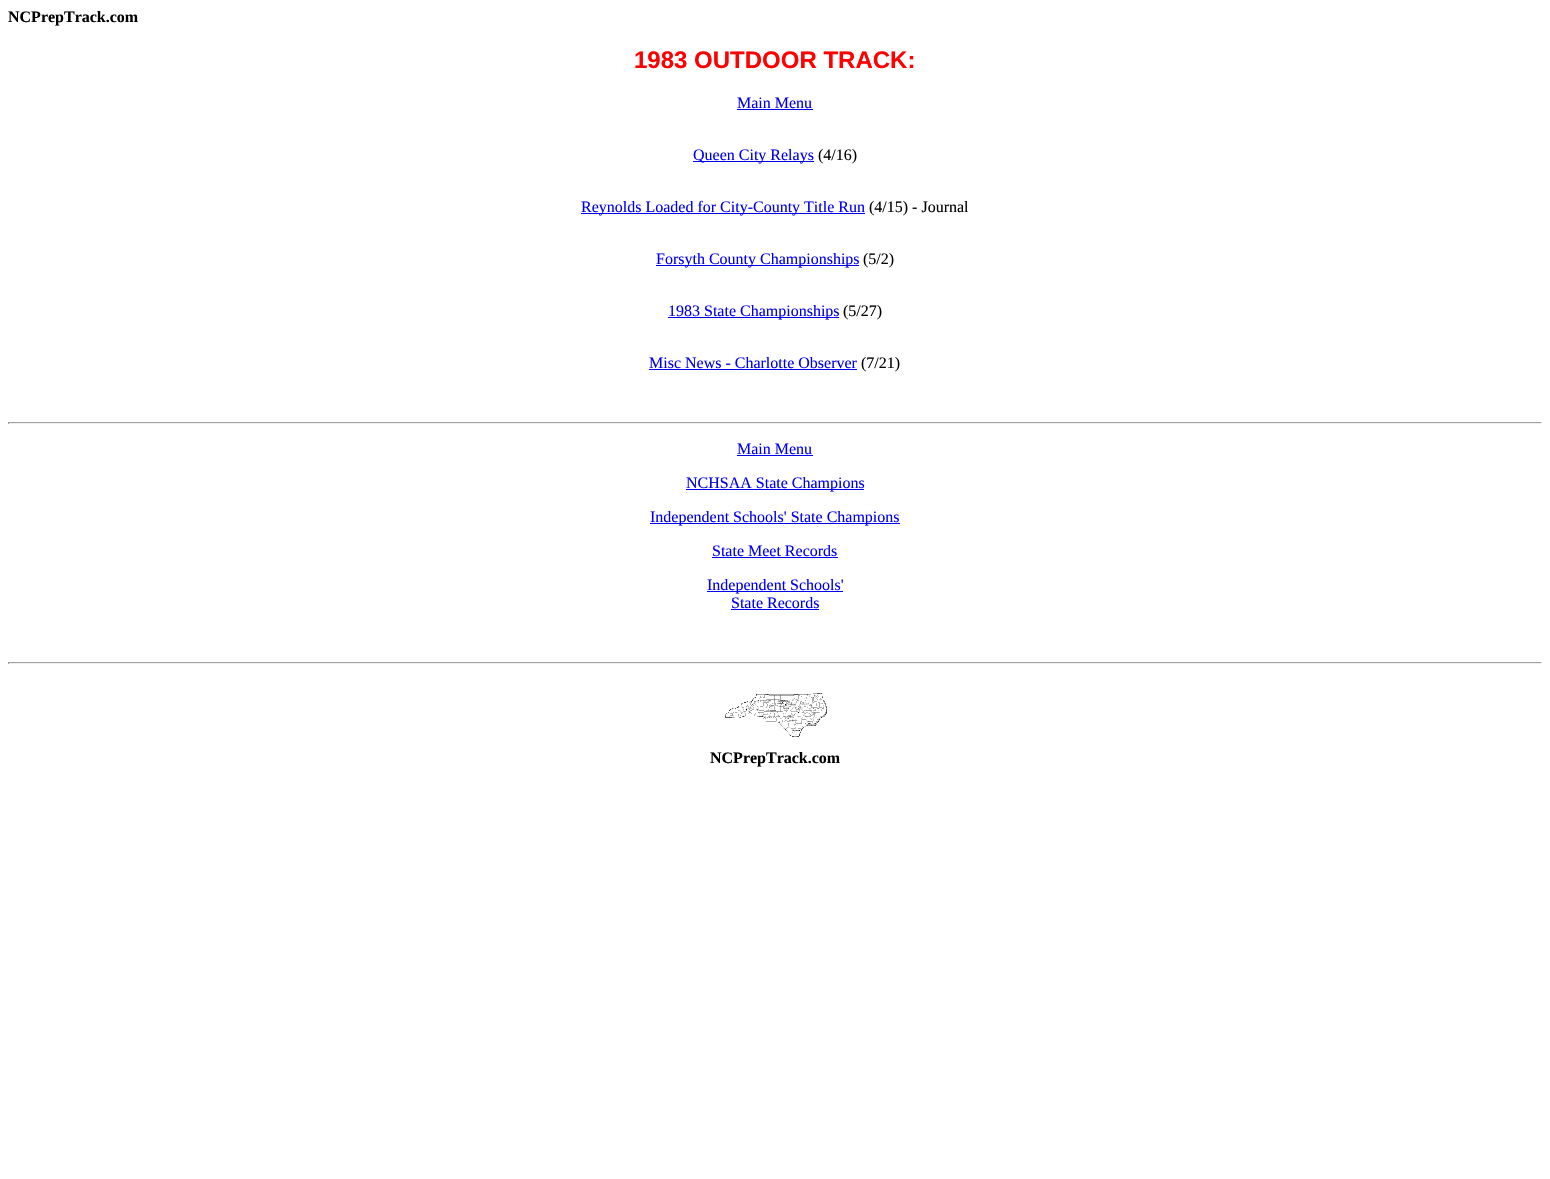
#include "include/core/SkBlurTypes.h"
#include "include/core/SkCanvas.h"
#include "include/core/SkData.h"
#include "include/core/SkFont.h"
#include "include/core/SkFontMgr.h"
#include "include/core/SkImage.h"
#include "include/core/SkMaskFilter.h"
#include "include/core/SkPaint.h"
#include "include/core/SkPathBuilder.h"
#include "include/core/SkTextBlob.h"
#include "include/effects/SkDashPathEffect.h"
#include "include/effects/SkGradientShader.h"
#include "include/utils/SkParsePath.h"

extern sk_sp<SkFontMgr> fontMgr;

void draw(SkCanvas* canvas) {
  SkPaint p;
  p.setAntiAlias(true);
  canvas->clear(SK_ColorWHITE);
  p.setColor(SkColorSetRGB(0, 0, 238));
  canvas->drawRect(SkRect::MakeLTRB(737, 109, 813, 110), p);
  canvas->drawRect(SkRect::MakeLTRB(693, 161, 814, 162), p);
  canvas->drawRect(SkRect::MakeLTRB(581, 213, 865, 214), p);
  canvas->drawRect(SkRect::MakeLTRB(656, 265, 859, 266), p);
  canvas->drawRect(SkRect::MakeLTRB(668, 317, 839, 318), p);
  canvas->drawRect(SkRect::MakeLTRB(649, 369, 857, 370), p);
  p.setColor(SkColorSetRGB(159, 159, 159));
  canvas->drawRect(SkRect::MakeLTRB(8, 422, 1542, 423), p);
  p.setColor(SkColorSetRGB(238, 238, 238));
  canvas->drawRect(SkRect::MakeLTRB(1541, 422, 1542, 424), p);
  canvas->drawRect(SkRect::MakeLTRB(8, 423, 1542, 424), p);
  p.setColor(SkColorSetRGB(159, 159, 159));
  canvas->drawRect(SkRect::MakeLTRB(8, 422, 9, 424), p);
  p.setColor(SkColorSetRGB(0, 0, 238));
  canvas->drawRect(SkRect::MakeLTRB(737, 455, 813, 456), p);
  canvas->drawRect(SkRect::MakeLTRB(686, 489, 864, 490), p);
  canvas->drawRect(SkRect::MakeLTRB(650, 523, 900, 524), p);
  canvas->drawRect(SkRect::MakeLTRB(712, 557, 838, 558), p);
  canvas->drawRect(SkRect::MakeLTRB(707, 591, 843, 592), p);
  canvas->drawRect(SkRect::MakeLTRB(731, 609, 819, 610), p);
  p.setColor(SkColorSetRGB(159, 159, 159));
  canvas->drawRect(SkRect::MakeLTRB(8, 662, 1542, 663), p);
  p.setColor(SkColorSetRGB(238, 238, 238));
  canvas->drawRect(SkRect::MakeLTRB(1541, 662, 1542, 664), p);
  canvas->drawRect(SkRect::MakeLTRB(8, 663, 1542, 664), p);
  p.setColor(SkColorSetRGB(159, 159, 159));
  canvas->drawRect(SkRect::MakeLTRB(8, 662, 9, 664), p);
  canvas->drawImageRect(SkImages::DeferredFromEncodedData(SkData::MakeFromFileName("images/1.png")), SkRect::MakeLTRB(725, 693, 827, 737), SkSamplingOptions());
  SkFont font1(fontMgr->matchFamilyStyle("Liberation Serif", SkFontStyle::Bold()), 16);
  font1.setSubpixel(true);
  p.setColor(SK_ColorBLACK);
  canvas->drawString("NCPrepTrack.com", 8, 22, font1, p);
  SkFont font2(fontMgr->matchFamilyStyle("Liberation Sans", SkFontStyle::Bold()), 24);
  font2.setSubpixel(true);
  p.setColor(SkColorSetRGB(255, 0, 0));
  canvas->drawString("1983 OUTDOOR TRACK:", 634, 68, font2, p);
  SkFont font3(fontMgr->matchFamilyStyle("Liberation Serif", SkFontStyle::Normal()), 16);
  font3.setSubpixel(true);
  p.setColor(SkColorSetRGB(0, 0, 238));
  canvas->drawString("Main Menu", 737, 108, font3, p);
  canvas->drawString("Queen City Relays", 693, 160, font3, p);
  p.setColor(SK_ColorBLACK);
  canvas->drawString("(4/16)", 818, 160, font3, p);
  p.setColor(SkColorSetRGB(0, 0, 238));
  canvas->drawString("Reynolds Loaded for City-County Title Run", 581, 212, font3, p);
  p.setColor(SK_ColorBLACK);
  canvas->drawString("(4/15) - Journal", 869, 212, font3, p);
  p.setColor(SkColorSetRGB(0, 0, 238));
  canvas->drawString("Forsyth County Championships", 656, 264, font3, p);
  p.setColor(SK_ColorBLACK);
  canvas->drawString("(5/2)", 863, 264, font3, p);
  p.setColor(SkColorSetRGB(0, 0, 238));
  canvas->drawString("1983 State Championships", 668, 316, font3, p);
  p.setColor(SK_ColorBLACK);
  canvas->drawString("(5/27)", 843, 316, font3, p);
  p.setColor(SkColorSetRGB(0, 0, 238));
  canvas->drawString("Misc News - Charlotte Observer", 649, 368, font3, p);
  p.setColor(SK_ColorBLACK);
  canvas->drawString("(7/21)", 861, 368, font3, p);
  p.setColor(SkColorSetRGB(0, 0, 238));
  canvas->drawString("Main Menu", 737, 454, font3, p);
  canvas->drawString("NCHSAA State Champions", 686, 488, font3, p);
  canvas->drawString("Independent Schools' State Champions", 650, 522, font3, p);
  canvas->drawString("State Meet Records", 712, 556, font3, p);
  canvas->drawString("Independent Schools'", 707, 590, font3, p);
  canvas->drawString("State Records", 731, 608, font3, p);
  p.setColor(SK_ColorBLACK);
  canvas->drawString("NCPrepTrack.com", 710, 763, font1, p);
}
